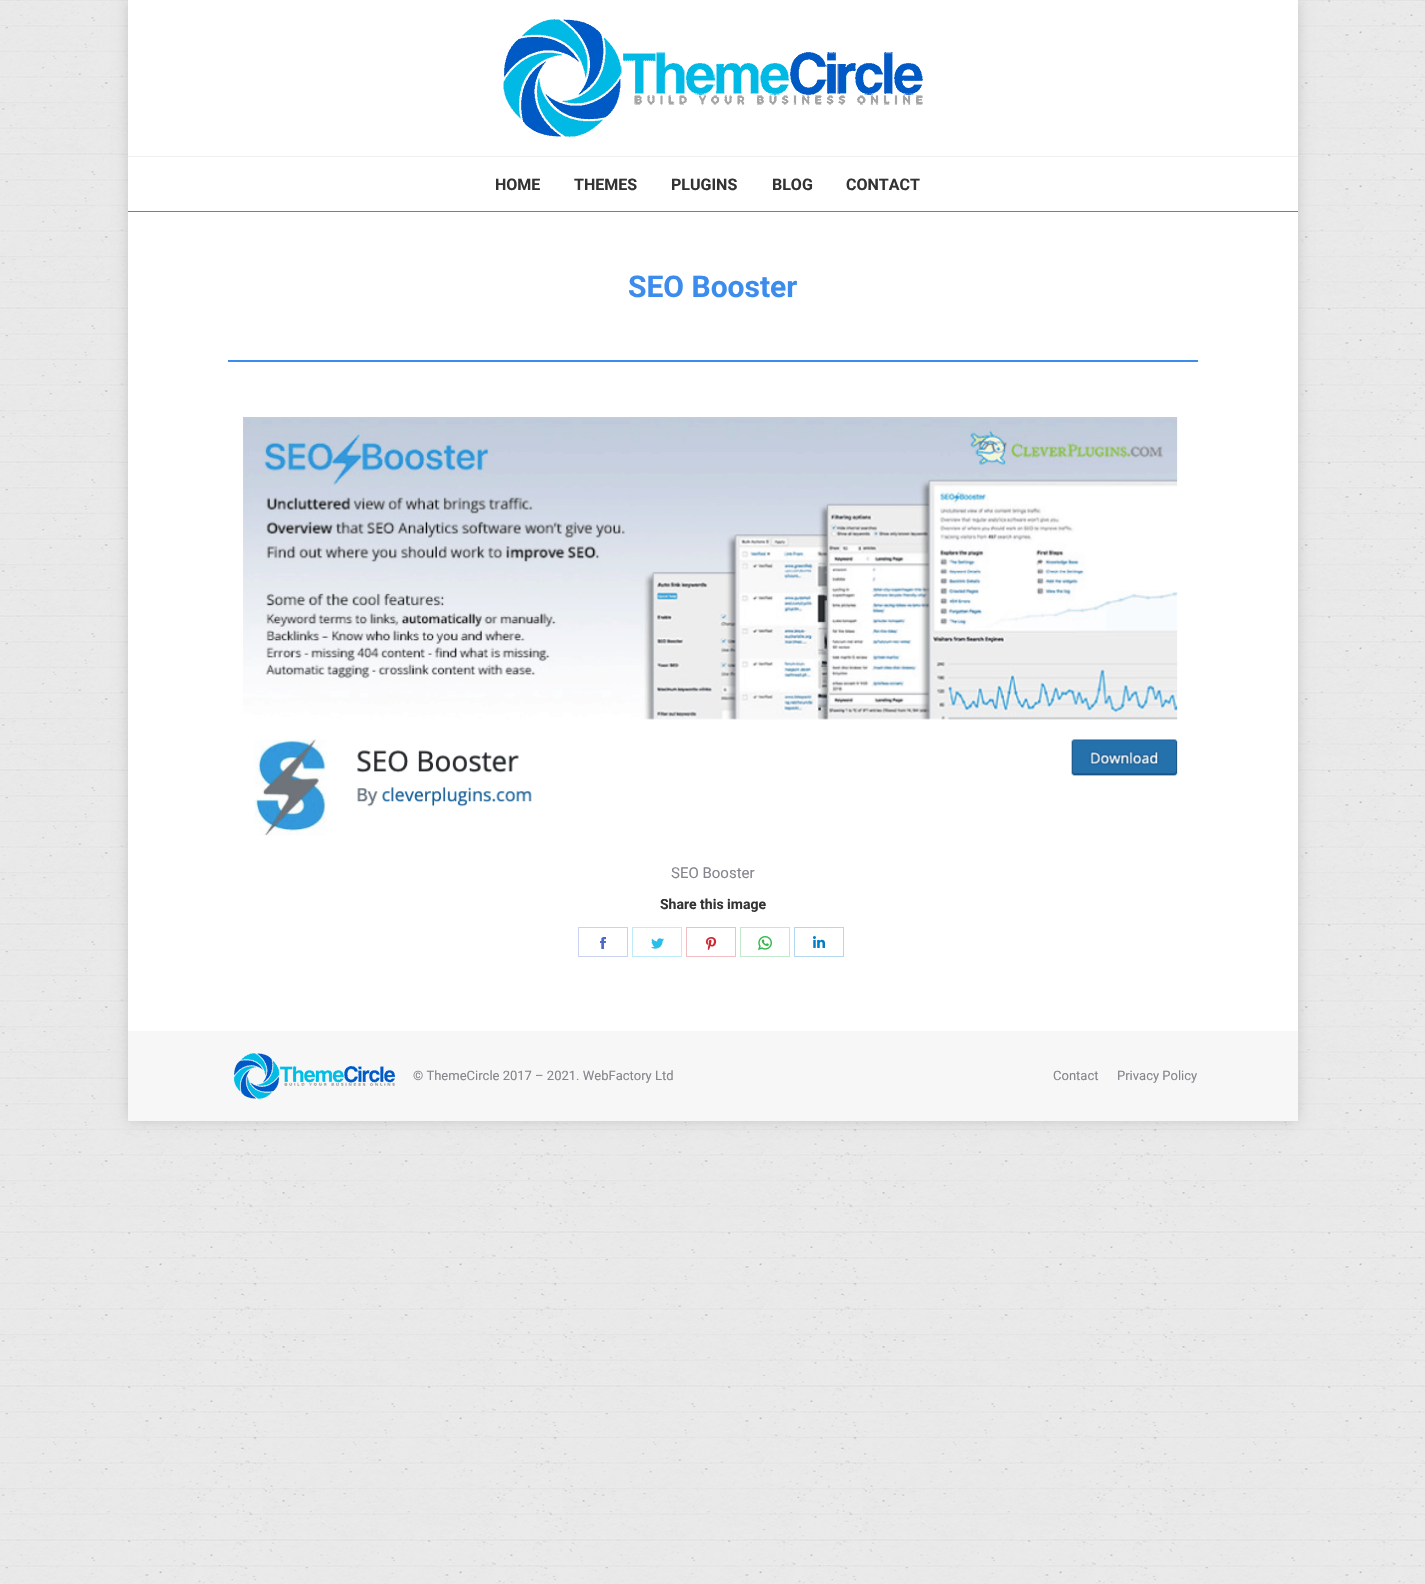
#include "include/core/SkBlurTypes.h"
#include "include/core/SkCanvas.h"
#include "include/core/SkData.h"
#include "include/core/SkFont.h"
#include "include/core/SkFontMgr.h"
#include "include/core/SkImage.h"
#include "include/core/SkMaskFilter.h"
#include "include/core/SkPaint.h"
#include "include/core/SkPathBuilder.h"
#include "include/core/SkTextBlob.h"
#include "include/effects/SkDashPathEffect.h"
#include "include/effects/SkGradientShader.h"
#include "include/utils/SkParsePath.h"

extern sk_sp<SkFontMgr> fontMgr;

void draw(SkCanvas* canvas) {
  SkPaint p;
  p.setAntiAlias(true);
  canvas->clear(SK_ColorWHITE);
  canvas->drawImageRect(SkImages::DeferredFromEncodedData(SkData::MakeFromFileName("images/1.png")), SkRect::MakeLTRB(0, 0, 1425, 1584), SkSamplingOptions());
  p.setColor(SkColorSetARGB(38, 0, 0, 0));
  p.setMaskFilter(SkMaskFilter::MakeBlur(kNormal_SkBlurStyle, 6));
  canvas->drawRect(SkRect::MakeLTRB(128, 0, 1298, 1121), p);
  p.setMaskFilter(nullptr);
  p.setColor(SK_ColorWHITE);
  canvas->drawRect(SkRect::MakeLTRB(128, 0, 1298, 1031), p);
  p.setColor(SkColorSetRGB(59, 140, 237));
  canvas->drawRect(SkRect::MakeLTRB(128, 211, 1298, 212), p);
  canvas->drawImageRect(SkImages::DeferredFromEncodedData(SkData::MakeFromFileName("images/2.png")), SkRect::MakeLTRB(503, 19, 923, 137), SkSamplingOptions());
  p.setColor(SkColorSetRGB(239, 239, 239));
  canvas->drawRect(SkRect::MakeLTRB(128, 156, 1298, 157), p);
  p.setColor(SkColorSetRGB(59, 140, 237));
  canvas->drawRect(SkRect::MakeLTRB(228, 360, 1198, 362), p);
  canvas->drawImageRect(SkImages::DeferredFromEncodedData(SkData::MakeFromFileName("images/3.png")), SkRect::MakeLTRB(243, 417, 1178, 836), SkSamplingOptions());
  p.setStyle(SkPaint::kStroke_Style);
  p.setStrokeWidth(1);
  p.setColor(SkColorSetRGB(201, 210, 238));
  canvas->drawRect(SkRect::MakeLTRB(578.5f, 927.5f, 627.5f, 956.5f), p);
  canvas->drawImageRect(SkImages::DeferredFromEncodedData(SkData::MakeFromFileName("images/4.png")), SkRect::MakeLTRB(600, 937, 606, 949), SkSamplingOptions());
  p.setColor(SkColorSetRGB(191, 236, 249));
  canvas->drawRect(SkRect::MakeLTRB(632.5f, 927.5f, 681.5f, 956.5f), p);
  canvas->drawImageRect(SkImages::DeferredFromEncodedData(SkData::MakeFromFileName("images/5.png")), SkRect::MakeLTRB(651, 938, 664, 949), SkSamplingOptions());
  p.setColor(SkColorSetRGB(241, 191, 194));
  canvas->drawRect(SkRect::MakeLTRB(686.5f, 927.5f, 735.5f, 956.5f), p);
  canvas->drawImageRect(SkImages::DeferredFromEncodedData(SkData::MakeFromFileName("images/6.png")), SkRect::MakeLTRB(705, 937, 717, 950), SkSamplingOptions());
  p.setColor(SkColorSetRGB(195, 233, 202));
  canvas->drawRect(SkRect::MakeLTRB(740.5f, 927.5f, 789.5f, 956.5f), p);
  canvas->drawImageRect(SkImages::DeferredFromEncodedData(SkData::MakeFromFileName("images/7.png")), SkRect::MakeLTRB(758, 936, 772, 950), SkSamplingOptions());
  p.setColor(SkColorSetRGB(179, 215, 238));
  canvas->drawRect(SkRect::MakeLTRB(794.5f, 927.5f, 843.5f, 956.5f), p);
  canvas->drawImageRect(SkImages::DeferredFromEncodedData(SkData::MakeFromFileName("images/8.png")), SkRect::MakeLTRB(813, 936, 825, 948), SkSamplingOptions());
  p.setStyle(SkPaint::kFill_Style);
  p.setColor(SkColorSetRGB(247, 247, 247));
  canvas->drawRect(SkRect::MakeLTRB(128, 1031, 1298, 1121), p);
  canvas->drawImageRect(SkImages::DeferredFromEncodedData(SkData::MakeFromFileName("images/9.png")), SkRect::MakeLTRB(234, 1053, 395, 1099), SkSamplingOptions());
  SkFont font1(fontMgr->matchFamilyStyle("Roboto", SkFontStyle::Bold()), 16);
  font1.setSubpixel(true);
  p.setColor(SkColorSetRGB(51, 51, 51));
  canvas->drawString("HOME", 495, 190, font1, p);
  canvas->drawString("THEMES", 574, 190, font1, p);
  canvas->drawString("PLUGINS", 671, 190, font1, p);
  canvas->drawString("BLOG", 772, 190, font1, p);
  canvas->drawString("CONTACT", 846, 190, font1, p);
  SkFont font2(fontMgr->matchFamilyStyle("Roboto", SkFontStyle::Bold()), 30);
  font2.setSubpixel(true);
  p.setColor(SkColorSetRGB(59, 140, 237));
  canvas->drawString("SEO Booster", 628, 297, font2, p);
  SkFont font3(fontMgr->matchFamilyStyle("Roboto", SkFontStyle::Normal()), 15);
  font3.setSubpixel(true);
  p.setColor(SkColorSetRGB(133, 134, 140));
  canvas->drawString("SEO Booster", 671, 878, font3, p);
  SkFont font4(fontMgr->matchFamilyStyle("Roboto", SkFontStyle::Bold()), 14);
  font4.setSubpixel(true);
  p.setColor(SkColorSetRGB(51, 51, 51));
  canvas->drawString("Share this image", 660, 909, font4, p);
  SkFont font5(fontMgr->matchFamilyStyle("Roboto", SkFontStyle::Normal()), 13);
  font5.setSubpixel(true);
  p.setColor(SkColorSetRGB(133, 134, 140));
  canvas->drawString("© ThemeCircle 2017 – 2021. WebFactory Ltd", 413, 1080, font5, p);
  canvas->drawString("Contact", 1053, 1080, font5, p);
  canvas->drawString("Privacy Policy", 1117, 1080, font5, p);
}
